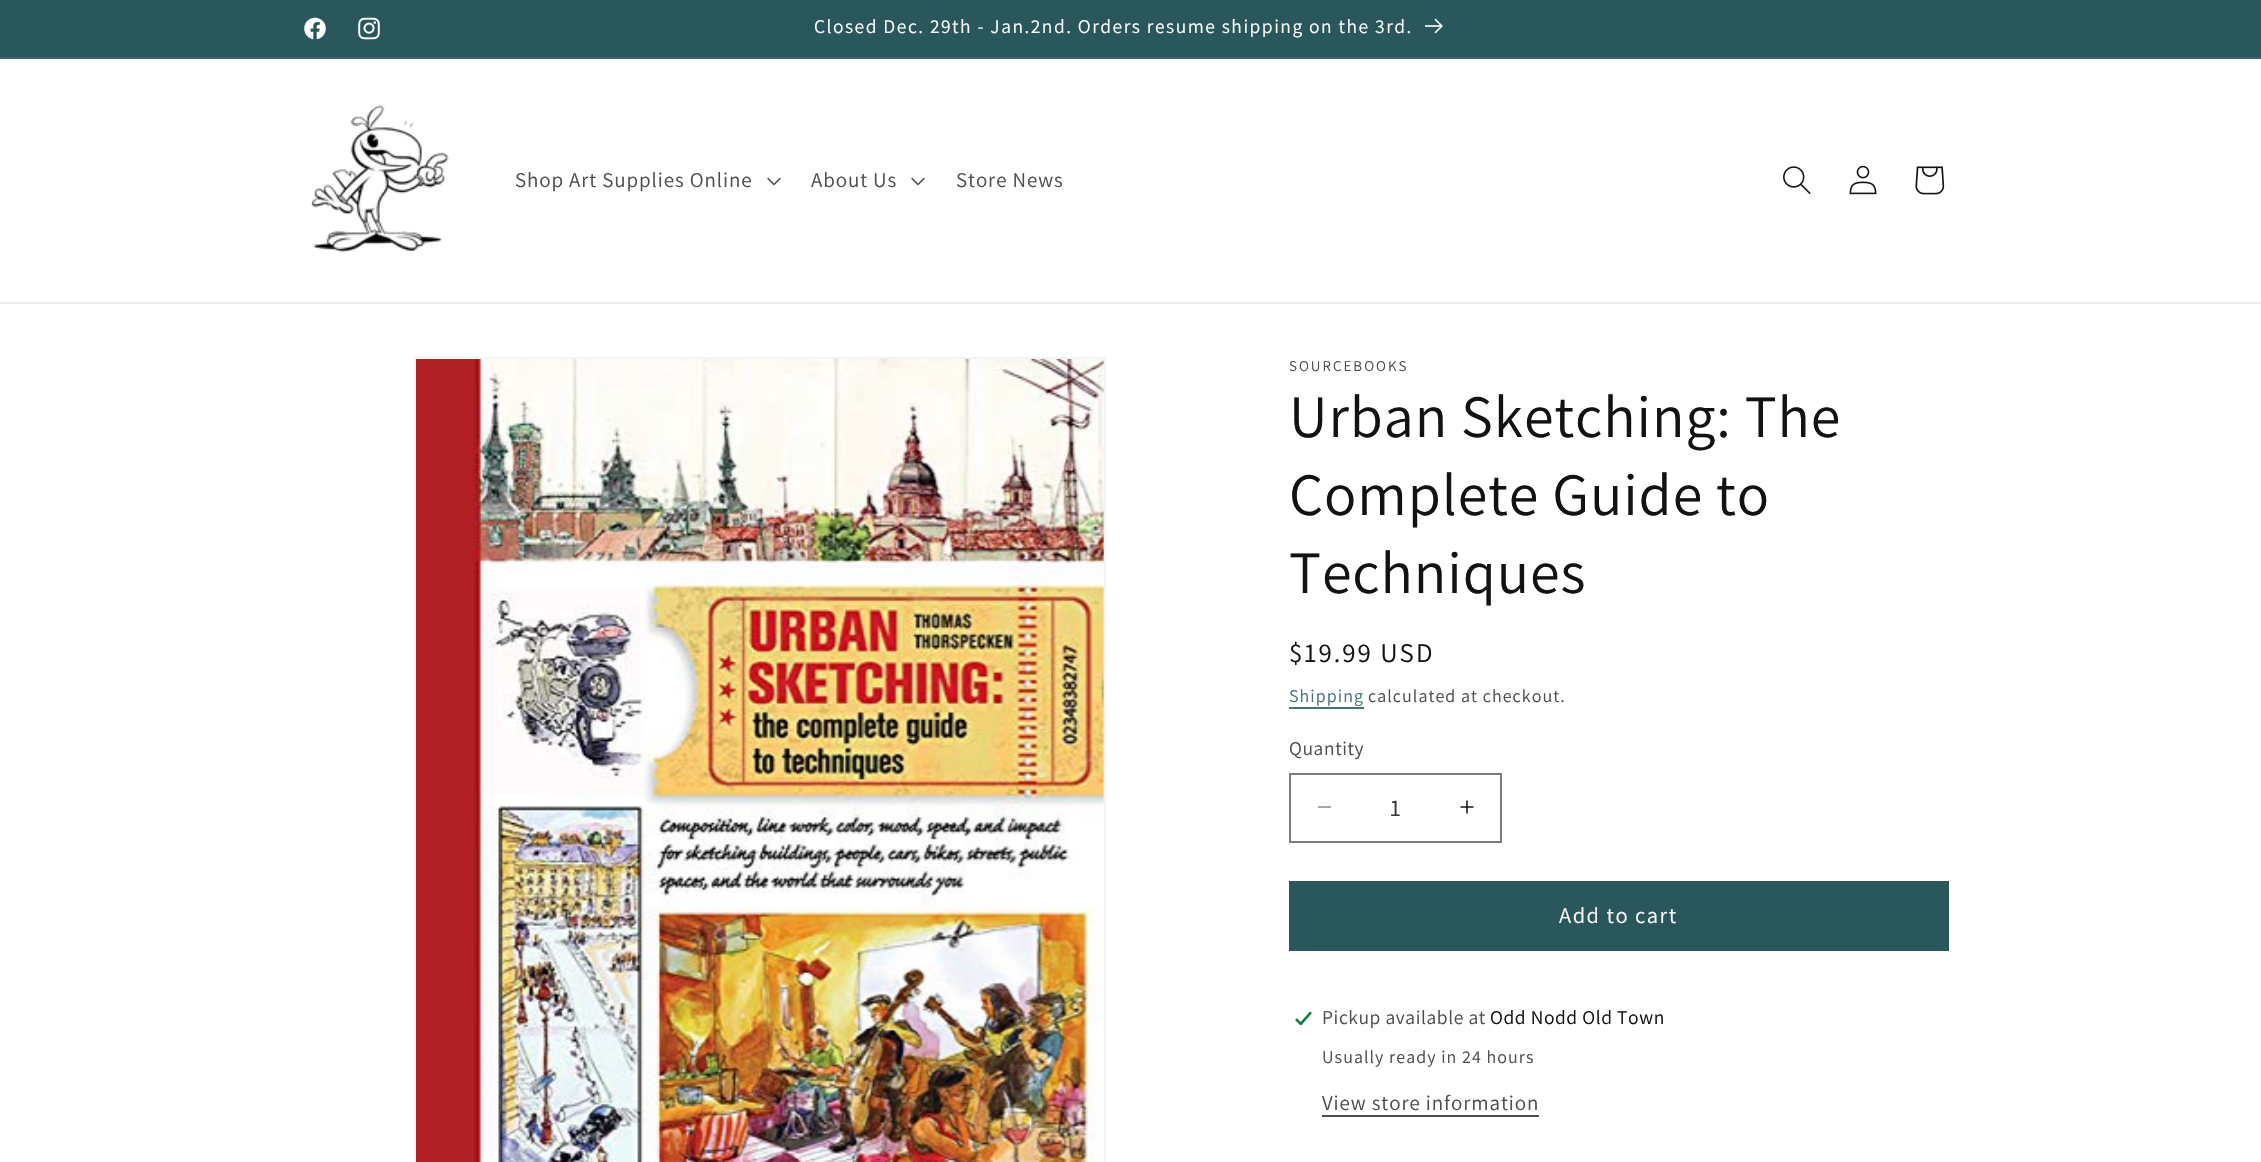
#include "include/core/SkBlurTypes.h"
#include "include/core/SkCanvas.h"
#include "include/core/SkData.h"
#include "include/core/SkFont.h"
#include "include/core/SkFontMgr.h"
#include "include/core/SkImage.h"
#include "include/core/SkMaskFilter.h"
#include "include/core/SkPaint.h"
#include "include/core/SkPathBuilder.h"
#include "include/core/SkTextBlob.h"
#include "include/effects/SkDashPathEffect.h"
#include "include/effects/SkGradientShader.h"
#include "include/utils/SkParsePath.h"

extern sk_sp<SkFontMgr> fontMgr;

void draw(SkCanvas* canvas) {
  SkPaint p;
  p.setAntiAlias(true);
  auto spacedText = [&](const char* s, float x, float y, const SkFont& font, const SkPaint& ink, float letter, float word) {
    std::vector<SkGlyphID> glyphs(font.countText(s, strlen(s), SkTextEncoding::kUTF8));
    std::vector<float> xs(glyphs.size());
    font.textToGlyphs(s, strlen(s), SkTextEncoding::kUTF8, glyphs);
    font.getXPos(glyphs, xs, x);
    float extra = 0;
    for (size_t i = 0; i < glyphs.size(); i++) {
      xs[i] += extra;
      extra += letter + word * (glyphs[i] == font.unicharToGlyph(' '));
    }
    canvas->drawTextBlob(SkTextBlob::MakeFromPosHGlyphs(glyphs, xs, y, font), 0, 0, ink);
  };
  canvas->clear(SK_ColorWHITE);
  p.setColor(SkColorSetRGB(41, 87, 91));
  canvas->drawRect(SkRect::MakeLTRB(0, 0, 2261, 57), p);
  p.setColor(SkColorSetRGB(58, 100, 104));
  canvas->drawRect(SkRect::MakeLTRB(0, 57, 2261, 59), p);
  canvas->drawImageRect(SkImages::DeferredFromEncodedData(SkData::MakeFromFileName("images/1.png")), SkRect::MakeLTRB(304, 17, 326, 40), SkSamplingOptions());
  canvas->drawImageRect(SkImages::DeferredFromEncodedData(SkData::MakeFromFileName("images/2.png")), SkRect::MakeLTRB(358, 17, 380, 40), SkSamplingOptions());
  canvas->drawImageRect(SkImages::DeferredFromEncodedData(SkData::MakeFromFileName("images/3.png")), SkRect::MakeLTRB(1425, 18, 1443, 34), SkSamplingOptions());
  p.setColor(SkColorSetRGB(236, 236, 236));
  canvas->drawRect(SkRect::MakeLTRB(0, 302, 2261, 304), p);
  canvas->drawImageRect(SkImages::DeferredFromEncodedData(SkData::MakeFromFileName("images/4.png")), SkRect::MakeLTRB(311, 104, 449, 253), SkSamplingOptions());
  canvas->drawImageRect(SkImages::DeferredFromEncodedData(SkData::MakeFromFileName("images/5.png")), SkRect::MakeLTRB(767, 177, 781, 186), SkSamplingOptions());
  canvas->drawImageRect(SkImages::DeferredFromEncodedData(SkData::MakeFromFileName("images/5.png")), SkRect::MakeLTRB(911, 177, 925, 186), SkSamplingOptions());
  canvas->drawImageRect(SkImages::DeferredFromEncodedData(SkData::MakeFromFileName("images/6.png")), SkRect::MakeLTRB(1783, 166, 1811, 194), SkSamplingOptions());
  canvas->drawImageRect(SkImages::DeferredFromEncodedData(SkData::MakeFromFileName("images/7.png")), SkRect::MakeLTRB(1849, 165, 1877, 195), SkSamplingOptions());
  canvas->drawImageRect(SkImages::DeferredFromEncodedData(SkData::MakeFromFileName("images/8.png")), SkRect::MakeLTRB(1915, 166, 1945, 195), SkSamplingOptions());
  p.setStyle(SkPaint::kStroke_Style);
  p.setStrokeWidth(2);
  p.setColor(SkColorSetRGB(243, 243, 243));
  canvas->drawRect(SkRect::MakeLTRB(415, 358, 1105, 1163), p);
  canvas->drawImageRect(SkImages::DeferredFromEncodedData(SkData::MakeFromFileName("images/9.png")), SkRect::MakeLTRB(416, 359, 1104, 1162), SkSamplingOptions());
  p.setStyle(SkPaint::kFill_Style);
  p.setColor(SkColorSetRGB(73, 112, 116));
  canvas->drawRect(SkRect::MakeLTRB(1289, 707, 1364, 709), p);
  canvas->drawImageRect(SkImages::DeferredFromEncodedData(SkData::MakeFromFileName("images/10.png")), SkRect::MakeLTRB(1317, 806, 1332, 808), SkSamplingOptions());
  canvas->drawImageRect(SkImages::DeferredFromEncodedData(SkData::MakeFromFileName("images/11.png")), SkRect::MakeLTRB(1460, 800, 1474, 814), SkSamplingOptions());
  p.setStyle(SkPaint::kStroke_Style);
  p.setColor(SkColorSetRGB(125, 125, 125));
  canvas->drawRect(SkRect::MakeLTRB(1290, 774, 1501, 842), p);
  p.setStyle(SkPaint::kFill_Style);
  p.setColor(SkColorSetRGB(41, 87, 91));
  canvas->drawRect(SkRect::MakeLTRB(1289, 881, 1949, 951), p);
  canvas->drawImageRect(SkImages::DeferredFromEncodedData(SkData::MakeFromFileName("images/12.png")), SkRect::MakeLTRB(1294, 1011, 1313, 1026), SkSamplingOptions());
  p.setColor(SkColorSetRGB(77, 77, 77));
  canvas->drawRect(SkRect::MakeLTRB(1322, 1115, 1539, 1117), p);
  SkFont font1(fontMgr->matchFamilyStyle("Assistant", SkFontStyle::Normal()), 19.5f);
  font1.setSubpixel(true);
  p.setColor(SK_ColorWHITE);
  spacedText("Closed Dec. 29th - Jan.2nd. Orders resume shipping on the 3rd.", 814, 33, font1, p, 1.5f, 0);
  SkFont font2(fontMgr->matchFamilyStyle("Assistant", SkFontStyle::Normal()), 21);
  font2.setSubpixel(true);
  p.setColor(SkColorSetRGB(77, 77, 77));
  spacedText("Shop Art Supplies Online", 515, 187, font2, p, 0.9f, 0);
  spacedText("About Us", 811, 187, font2, p, 0.9f, 0);
  spacedText("Store News", 956, 187, font2, p, 0.9f, 0);
  SkFont font3(fontMgr->matchFamilyStyle("Assistant", SkFontStyle::Normal()), 15);
  font3.setSubpixel(true);
  spacedText("SOURCEBOOKS", 1289, 371, font3, p, 2, 0);
  SkFont font4(fontMgr->matchFamilyStyle("Assistant", SkFontStyle::Normal()), 60);
  font4.setSubpixel(true);
  p.setColor(SkColorSetRGB(18, 18, 18));
  spacedText("Urban Sketching: The", 1289, 437, font4, p, 0.9f, 0);
  spacedText("Complete Guide to", 1289, 515, font4, p, 0.9f, 0);
  spacedText("Techniques", 1289, 593, font4, p, 0.9f, 0);
  SkFont font5(fontMgr->matchFamilyStyle("Assistant", SkFontStyle::Normal()), 27);
  font5.setSubpixel(true);
  spacedText("$19.99 USD", 1289, 662, font5, p, 2, 0);
  SkFont font6(fontMgr->matchFamilyStyle("Assistant", SkFontStyle::Normal()), 18);
  font6.setSubpixel(true);
  p.setColor(SkColorSetRGB(73, 112, 116));
  spacedText("Shipping", 1289, 702, font6, p, 1.05f, 0);
  p.setColor(SkColorSetRGB(77, 77, 77));
  spacedText("calculated at checkout.", 1368, 702, font6, p, 1.05f, 0);
  spacedText("Quantity", 1289, 755, font1, p, 0.6f, 0);
  SkFont font7(fontMgr->matchFamilyStyle("Assistant", SkFontStyle::Normal()), 24);
  font7.setSubpixel(true);
  p.setColor(SkColorSetRGB(54, 54, 54));
  canvas->drawString("1", 1390, 816, font7, p);
  SkFont font8(fontMgr->matchFamilyStyle("Assistant", SkFontStyle::Normal()), 22.5f);
  font8.setSubpixel(true);
  p.setColor(SK_ColorWHITE);
  spacedText("Add to cart", 1559, 923, font8, p, 1.5f, 0);
  p.setColor(SkColorSetRGB(77, 77, 77));
  spacedText("Pickup available at", 1322, 1024, font1, p, 0.6f, 0);
  p.setColor(SkColorSetRGB(18, 18, 18));
  spacedText("Odd Nodd Old Town", 1490, 1024, font1, p, 0.6f, 0);
  p.setColor(SkColorSetRGB(77, 77, 77));
  spacedText("Usually ready in 24 hours", 1322, 1063, font6, p, 1.05f, 0);
  spacedText("View store information", 1322, 1110, font2, p, 0.9f, 0);
}
